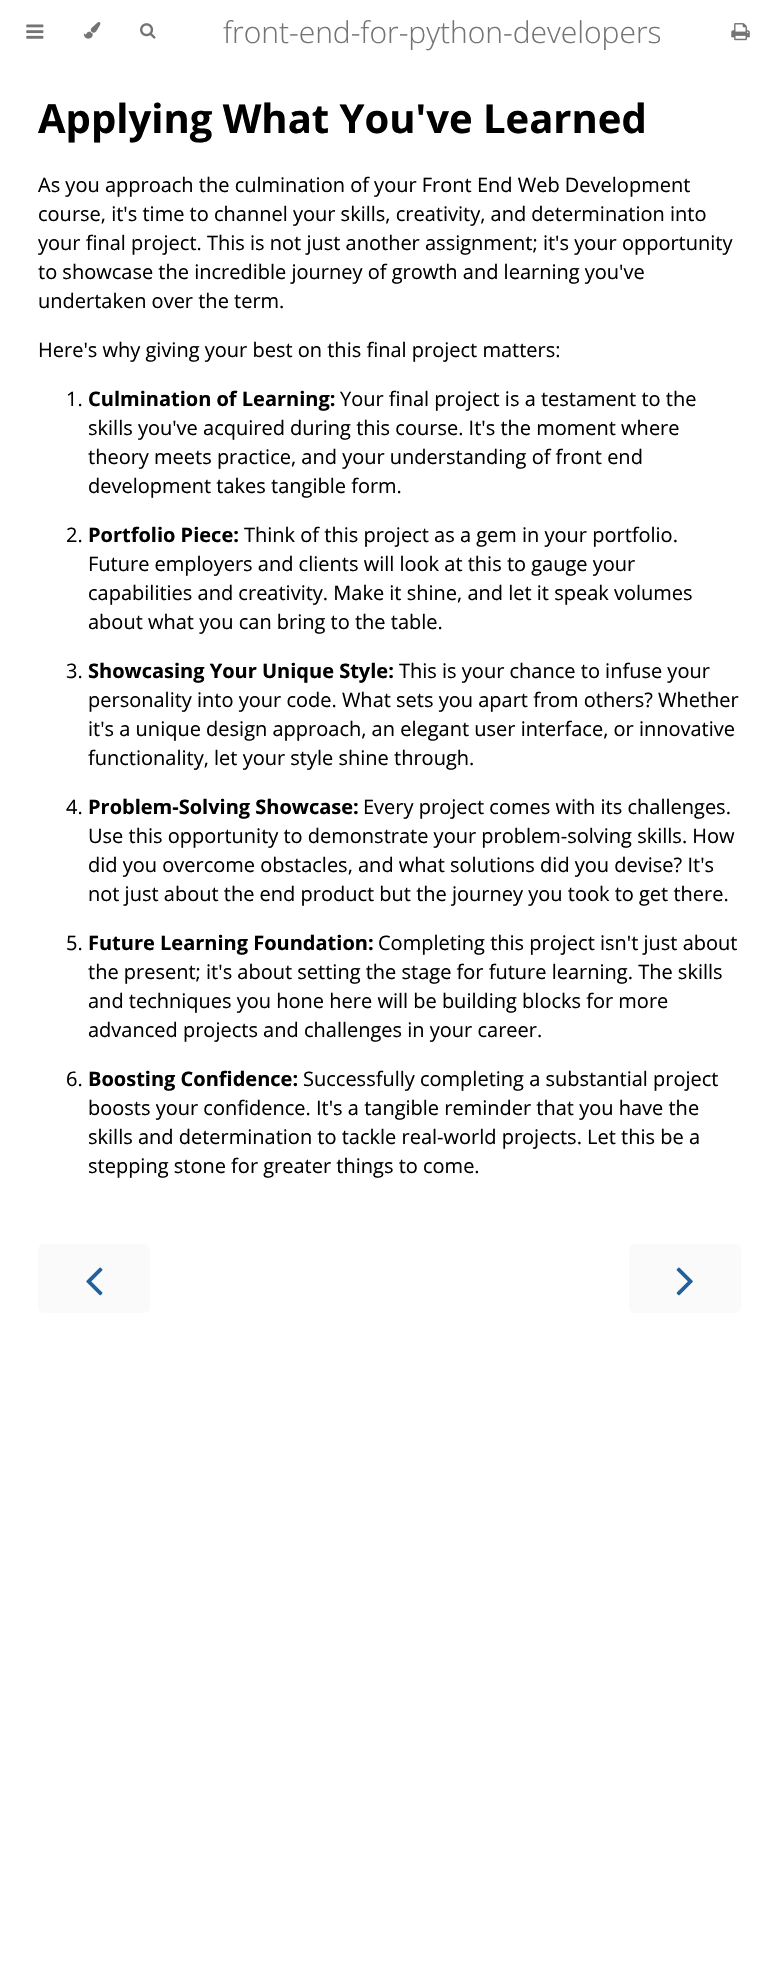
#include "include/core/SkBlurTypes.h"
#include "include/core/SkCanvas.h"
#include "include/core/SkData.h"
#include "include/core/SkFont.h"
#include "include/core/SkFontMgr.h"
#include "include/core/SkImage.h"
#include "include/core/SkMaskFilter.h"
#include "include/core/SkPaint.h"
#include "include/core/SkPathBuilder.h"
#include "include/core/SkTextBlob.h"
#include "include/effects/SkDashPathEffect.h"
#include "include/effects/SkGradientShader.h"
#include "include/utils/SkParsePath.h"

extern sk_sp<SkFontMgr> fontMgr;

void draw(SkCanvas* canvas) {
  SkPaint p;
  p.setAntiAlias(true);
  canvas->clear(SK_ColorWHITE);
  canvas->drawImageRect(SkImages::DeferredFromEncodedData(SkData::MakeFromFileName("images/1.png")), SkRect::MakeLTRB(26, 24, 44, 39), SkSamplingOptions());
  canvas->drawImageRect(SkImages::DeferredFromEncodedData(SkData::MakeFromFileName("images/2.png")), SkRect::MakeLTRB(83, 22, 101, 39), SkSamplingOptions());
  canvas->drawImageRect(SkImages::DeferredFromEncodedData(SkData::MakeFromFileName("images/3.png")), SkRect::MakeLTRB(140, 23, 156, 39), SkSamplingOptions());
  canvas->drawImageRect(SkImages::DeferredFromEncodedData(SkData::MakeFromFileName("images/4.png")), SkRect::MakeLTRB(731, 23, 750, 41), SkSamplingOptions());
  p.setColor(SkColorSetRGB(250, 250, 250));
  canvas->drawRoundRect(SkRect::MakeLTRB(38, 1244, 150, 1313), 6, 6, p);
  canvas->drawImageRect(SkImages::DeferredFromEncodedData(SkData::MakeFromFileName("images/5.png")), SkRect::MakeLTRB(86, 1267, 103, 1296), SkSamplingOptions());
  canvas->drawRoundRect(SkRect::MakeLTRB(629, 1244, 741, 1313), 6, 6, p);
  canvas->drawImageRect(SkImages::DeferredFromEncodedData(SkData::MakeFromFileName("images/6.png")), SkRect::MakeLTRB(676, 1267, 693, 1296), SkSamplingOptions());
  SkFont font1(fontMgr->matchFamilyStyle("Open Sans", SkFontStyle(300, SkFontStyle::kNormal_Width, SkFontStyle::kUpright_Slant)), 30);
  font1.setSubpixel(true);
  p.setColor(SkColorSetRGB(116, 116, 116));
  canvas->drawString("front-end-for-python-developers", 223, 43, font1, p);
  SkFont font2(fontMgr->matchFamilyStyle("Open Sans", SkFontStyle::Bold()), 40);
  font2.setSubpixel(true);
  p.setColor(SK_ColorBLACK);
  canvas->drawString("Applying What You've Learned", 38, 133, font2, p);
  SkFont font3(fontMgr->matchFamilyStyle("Open Sans", SkFontStyle::Normal()), 20);
  font3.setSubpixel(true);
  canvas->drawString("As you approach the culmination of your Front End Web Development", 38, 192, font3, p);
  canvas->drawString("course, it's time to channel your skills, creativity, and determination into", 38, 221, font3, p);
  canvas->drawString("your final project. This is not just another assignment; it's your opportunity", 38, 250, font3, p);
  canvas->drawString("to showcase the incredible journey of growth and learning you've", 38, 279, font3, p);
  canvas->drawString("undertaken over the term.", 38, 308, font3, p);
  canvas->drawString("Here's why giving your best on this final project matters:", 38, 357, font3, p);
  canvas->drawString("1.", 66, 406, font3, p);
  SkFont font4(fontMgr->matchFamilyStyle("Open Sans", SkFontStyle::Bold()), 20);
  font4.setSubpixel(true);
  canvas->drawString("Culmination of Learning:", 88, 406, font4, p);
  canvas->drawString("Your final project is a testament to the", 340, 406, font3, p);
  canvas->drawString("skills you've acquired during this course. It's the moment where", 88, 435, font3, p);
  canvas->drawString("theory meets practice, and your understanding of front end", 88, 464, font3, p);
  canvas->drawString("development takes tangible form.", 88, 493, font3, p);
  canvas->drawString("2.", 66, 542, font3, p);
  canvas->drawString("Portfolio Piece:", 88, 542, font4, p);
  canvas->drawString("Think of this project as a gem in your portfolio.", 244, 542, font3, p);
  canvas->drawString("Future employers and clients will look at this to gauge your", 88, 571, font3, p);
  canvas->drawString("capabilities and creativity. Make it shine, and let it speak volumes", 88, 600, font3, p);
  canvas->drawString("about what you can bring to the table.", 88, 629, font3, p);
  canvas->drawString("3.", 66, 678, font3, p);
  canvas->drawString("Showcasing Your Unique Style:", 88, 678, font4, p);
  canvas->drawString("This is your chance to infuse your", 399, 678, font3, p);
  canvas->drawString("personality into your code. What sets you apart from others? Whether", 88, 707, font3, p);
  canvas->drawString("it's a unique design approach, an elegant user interface, or innovative", 88, 736, font3, p);
  canvas->drawString("functionality, let your style shine through.", 88, 765, font3, p);
  canvas->drawString("4.", 66, 814, font3, p);
  canvas->drawString("Problem-Solving Showcase:", 88, 814, font4, p);
  canvas->drawString("Every project comes with its challenges.", 363, 814, font3, p);
  canvas->drawString("Use this opportunity to demonstrate your problem-solving skills. How", 88, 843, font3, p);
  canvas->drawString("did you overcome obstacles, and what solutions did you devise? It's", 88, 872, font3, p);
  canvas->drawString("not just about the end product but the journey you took to get there.", 88, 901, font3, p);
  canvas->drawString("5.", 66, 950, font3, p);
  canvas->drawString("Future Learning Foundation:", 88, 950, font4, p);
  canvas->drawString("Completing this project isn't just about", 378, 950, font3, p);
  canvas->drawString("the present; it's about setting the stage for future learning. The skills", 88, 979, font3, p);
  canvas->drawString("and techniques you hone here will be building blocks for more", 88, 1008, font3, p);
  canvas->drawString("advanced projects and challenges in your career.", 88, 1037, font3, p);
  canvas->drawString("6.", 66, 1086, font3, p);
  canvas->drawString("Boosting Confidence:", 88, 1086, font4, p);
  canvas->drawString("Successfully completing a substantial project", 303, 1086, font3, p);
  canvas->drawString("boosts your confidence. It's a tangible reminder that you have the", 88, 1115, font3, p);
  canvas->drawString("skills and determination to tackle real-world projects. Let this be a", 88, 1144, font3, p);
  canvas->drawString("stepping stone for greater things to come.", 88, 1173, font3, p);
}
